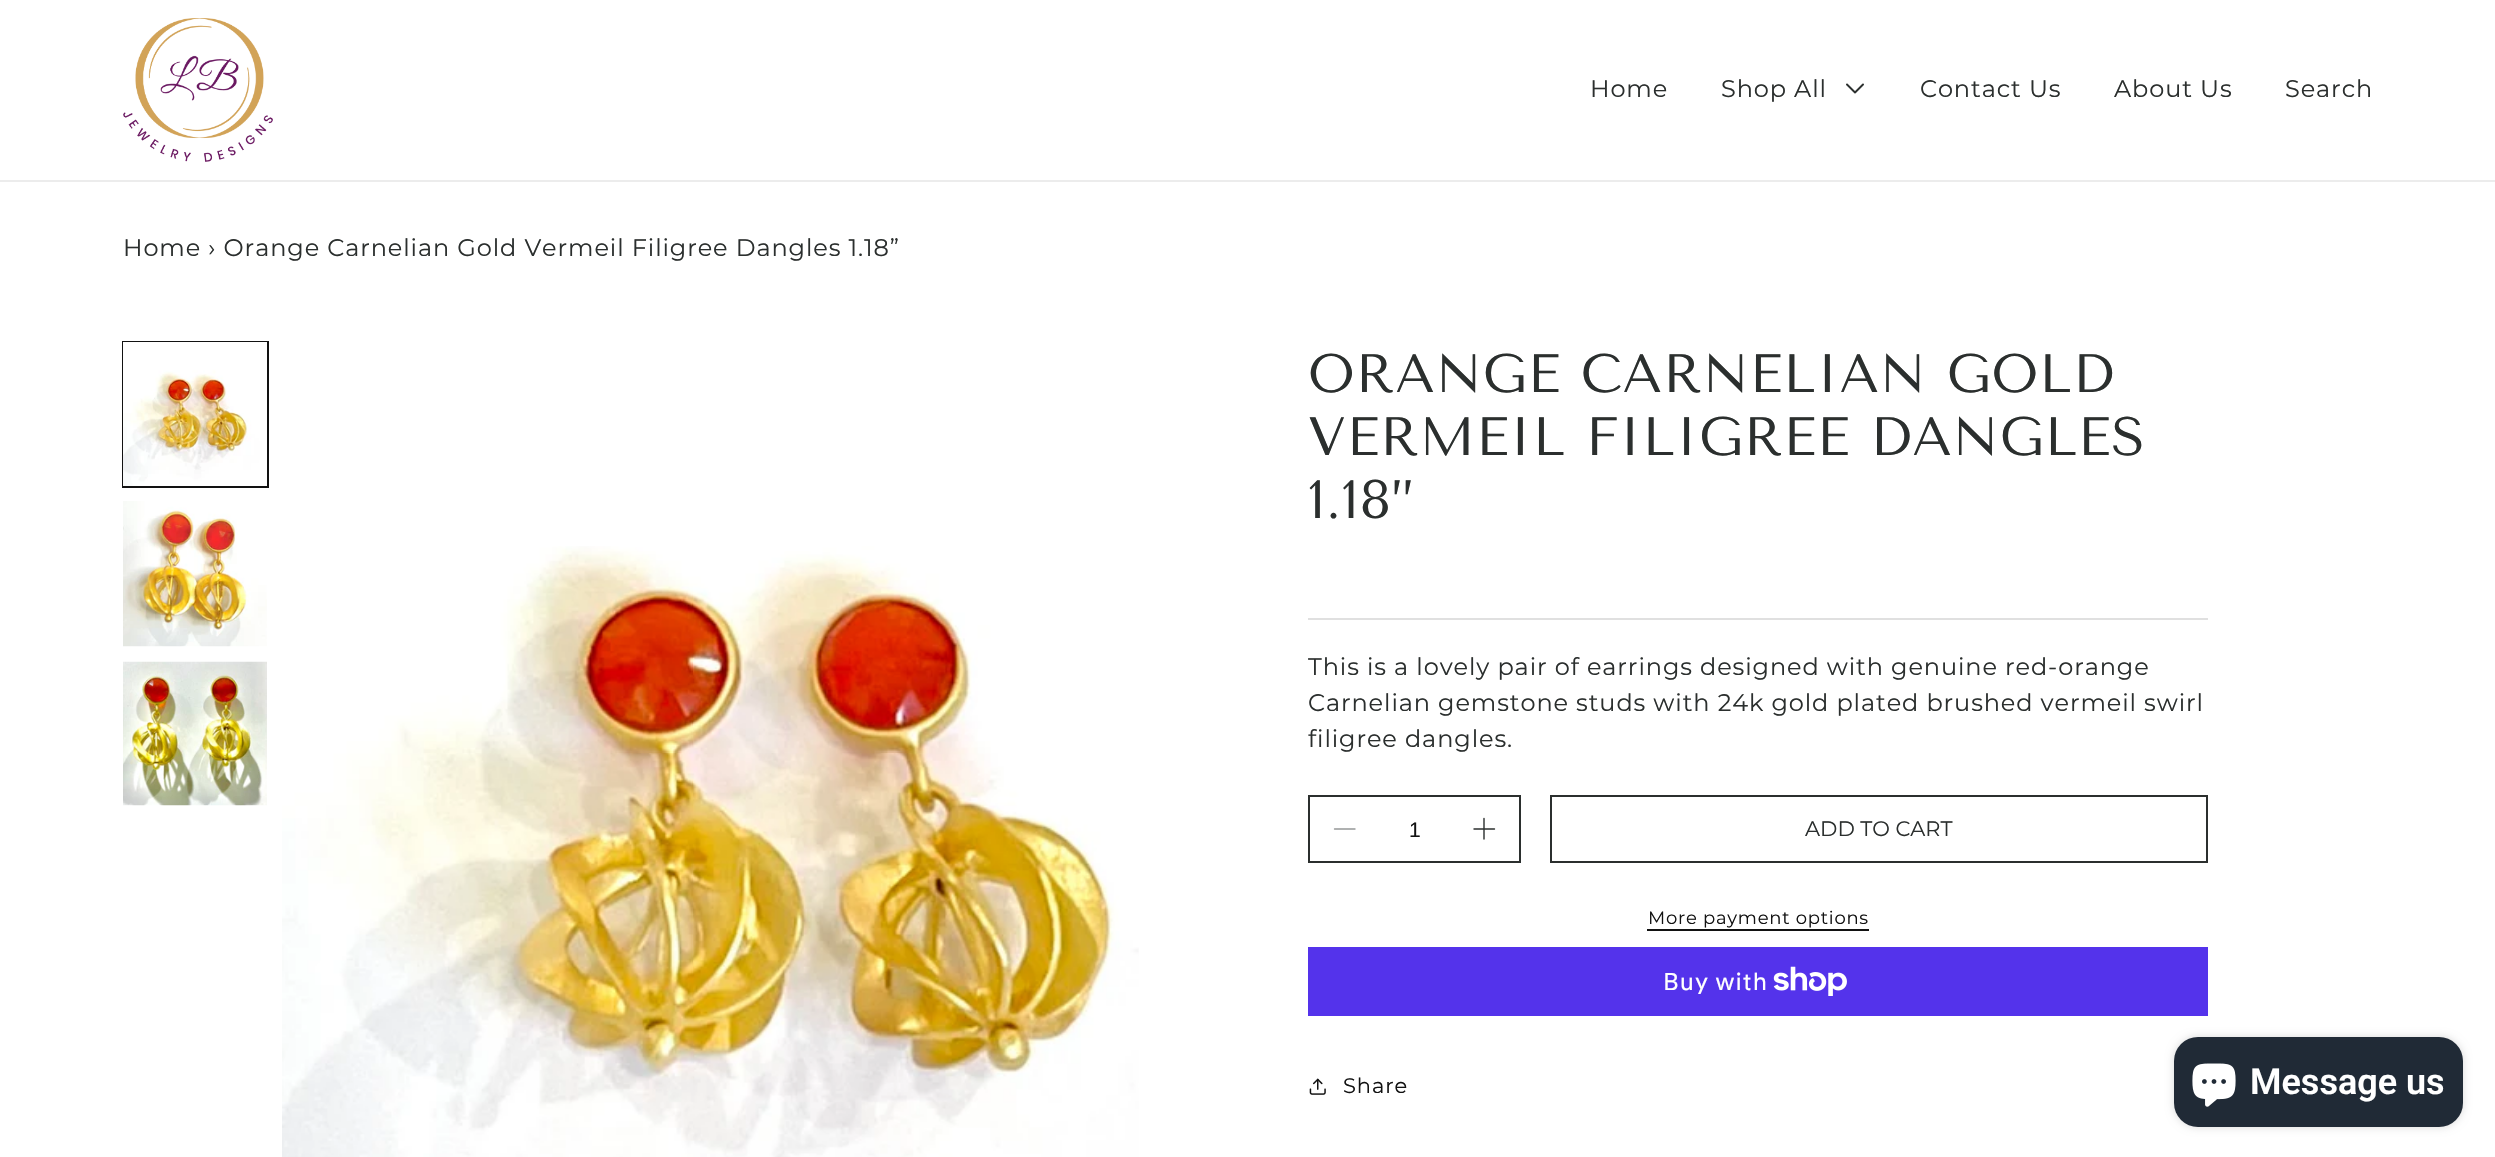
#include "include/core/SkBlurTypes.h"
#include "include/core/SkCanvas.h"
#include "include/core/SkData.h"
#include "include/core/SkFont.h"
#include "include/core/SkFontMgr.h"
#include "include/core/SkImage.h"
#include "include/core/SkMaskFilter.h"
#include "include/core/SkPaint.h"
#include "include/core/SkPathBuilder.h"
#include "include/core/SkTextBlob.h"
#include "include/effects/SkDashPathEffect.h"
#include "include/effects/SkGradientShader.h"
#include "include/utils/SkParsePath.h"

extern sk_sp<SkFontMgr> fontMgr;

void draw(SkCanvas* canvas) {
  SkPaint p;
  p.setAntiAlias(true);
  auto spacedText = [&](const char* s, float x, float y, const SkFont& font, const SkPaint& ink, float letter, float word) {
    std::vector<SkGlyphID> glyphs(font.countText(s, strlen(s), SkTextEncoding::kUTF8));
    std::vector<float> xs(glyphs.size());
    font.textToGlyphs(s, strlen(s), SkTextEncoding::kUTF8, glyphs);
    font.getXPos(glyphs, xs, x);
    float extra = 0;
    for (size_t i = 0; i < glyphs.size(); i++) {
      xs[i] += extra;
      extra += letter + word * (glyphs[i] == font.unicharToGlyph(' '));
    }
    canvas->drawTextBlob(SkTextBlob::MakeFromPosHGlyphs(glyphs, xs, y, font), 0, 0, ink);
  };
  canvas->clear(SK_ColorWHITE);
  p.setColor(SkColorSetRGB(236, 236, 236));
  canvas->drawRect(SkRect::MakeLTRB(0, 180, 2495, 182), p);
  canvas->drawImageRect(SkImages::DeferredFromEncodedData(SkData::MakeFromFileName("images/1.png")), SkRect::MakeLTRB(123, 18, 273, 162), SkSamplingOptions());
  canvas->drawImageRect(SkImages::DeferredFromEncodedData(SkData::MakeFromFileName("images/2.png")), SkRect::MakeLTRB(1846, 83, 1864, 94), SkSamplingOptions());
  p.setStyle(SkPaint::kStroke_Style);
  p.setStrokeWidth(2);
  p.setColor(SkColorSetRGB(18, 18, 18));
  canvas->drawRect(SkRect::MakeLTRB(123, 342, 268, 487), p);
  canvas->drawImageRect(SkImages::DeferredFromEncodedData(SkData::MakeFromFileName("images/3.png")), SkRect::MakeLTRB(123, 342, 267, 486), SkSamplingOptions());
  canvas->drawImageRect(SkImages::DeferredFromEncodedData(SkData::MakeFromFileName("images/4.png")), SkRect::MakeLTRB(123, 501, 267, 647), SkSamplingOptions());
  canvas->drawImageRect(SkImages::DeferredFromEncodedData(SkData::MakeFromFileName("images/5.png")), SkRect::MakeLTRB(123, 661, 267, 806), SkSamplingOptions());
  canvas->drawImageRect(SkImages::DeferredFromEncodedData(SkData::MakeFromFileName("images/6.png")), SkRect::MakeLTRB(282, 546, 1139, 1157), SkSamplingOptions());
  p.setStyle(SkPaint::kFill_Style);
  p.setColor(SkColorSetRGB(224, 224, 224));
  canvas->drawRect(SkRect::MakeLTRB(1308, 618, 2208, 620), p);
  p.setStyle(SkPaint::kStroke_Style);
  p.setColor(SkColorSetRGB(43, 47, 46));
  canvas->drawRect(SkRect::MakeLTRB(1309, 796, 1520, 862), p);
  p.setStrokeWidth(1.4f);
  p.setStrokeCap(SkPaint::kRound_Cap);
  p.setStrokeJoin(SkPaint::kRound_Join);
  p.setColor(SkColorSetRGB(149, 151, 151));
  canvas->drawPath(SkPathBuilder().moveTo(1334.5f, 829).lineTo(1355, 829).detach(), p);
  p.setColor(SkColorSetRGB(43, 47, 46));
  canvas->drawPath(SkPathBuilder().moveTo(1484, 818.5f).lineTo(1484, 839).moveTo(1474, 829).lineTo(1494.5f, 829).detach(), p);
  p.setStrokeWidth(2);
  p.setStrokeCap(SkPaint::kButt_Cap);
  p.setStrokeJoin(SkPaint::kMiter_Join);
  canvas->drawRect(SkRect::MakeLTRB(1551, 796, 2207, 862), p);
  p.setStyle(SkPaint::kFill_Style);
  p.setColor(SkColorSetRGB(18, 18, 18));
  canvas->drawRect(SkRect::MakeLTRB(1647, 929, 1869, 931), p);
  p.setColor(SkColorSetRGB(84, 51, 235));
  canvas->drawRect(SkRect::MakeLTRB(1308, 947, 2208, 1016), p);
  canvas->drawImageRect(SkImages::DeferredFromEncodedData(SkData::MakeFromFileName("images/7.png")), SkRect::MakeLTRB(1773, 966, 1847, 996), SkSamplingOptions());
  canvas->drawImageRect(SkImages::DeferredFromEncodedData(SkData::MakeFromFileName("images/8.png")), SkRect::MakeLTRB(1309, 1078, 1326, 1095), SkSamplingOptions());
  p.setColor(SkColorSetARGB(38, 0, 0, 0));
  p.setMaskFilter(SkMaskFilter::MakeBlur(kNormal_SkBlurStyle, 4));
  canvas->drawRoundRect(SkRect::MakeLTRB(2174, 1037, 2463, 1127), 24, 24, p);
  p.setMaskFilter(nullptr);
  p.setColor(SkColorSetRGB(32, 42, 54));
  canvas->drawRoundRect(SkRect::MakeLTRB(2174, 1037, 2463, 1127), 24, 24, p);
  canvas->drawImageRect(SkImages::DeferredFromEncodedData(SkData::MakeFromFileName("images/9.png")), SkRect::MakeLTRB(2192, 1063, 2236, 1107), SkSamplingOptions());
  SkFont font1(fontMgr->matchFamilyStyle("Montserrat", SkFontStyle::Normal()), 24);
  font1.setSubpixel(true);
  p.setColor(SkColorSetRGB(43, 47, 46));
  spacedText("Home", 1590, 97, font1, p, 0.9f, 0);
  spacedText("Shop All", 1721, 97, font1, p, 0.9f, 0);
  spacedText("Contact Us", 1920, 97, font1, p, 0.9f, 0);
  spacedText("About Us", 2114, 97, font1, p, 0.9f, 0);
  spacedText("Search", 2285, 97, font1, p, 0.9f, 0);
  spacedText("Home › Orange Carnelian Gold Vermeil Filigree Dangles 1.18”", 123, 256, font1, p, 0.9f, 0);
  SkFont font2(fontMgr->matchFamilyStyle("Tenor Sans", SkFontStyle::Normal()), 54);
  font2.setSubpixel(true);
  spacedText("ORANGE CARNELIAN GOLD", 1308, 392, font2, p, 0.9f, 0);
  spacedText("VERMEIL FILIGREE DANGLES", 1308, 455, font2, p, 0.9f, 0);
  spacedText("1.18”", 1308, 518, font2, p, 0.9f, 0);
  spacedText("This is a lovely pair of earrings designed with genuine red-orange", 1308, 675, font1, p, 0.9f, 0);
  spacedText("Carnelian gemstone studs with 24k gold plated brushed vermeil swirl", 1308, 711, font1, p, 0.9f, 0);
  spacedText("filigree dangles.", 1308, 747, font1, p, 0.9f, 0);
  SkFont font3(fontMgr->matchFamilyStyle("Liberation Sans", SkFontStyle::Normal()), 21);
  font3.setSubpixel(true);
  p.setColor(SkColorSetRGB(18, 18, 18));
  canvas->drawString("1", 1409, 837, font3, p);
  SkFont font4(fontMgr->matchFamilyStyle("Montserrat", SkFontStyle::Normal()), 21);
  font4.setSubpixel(true);
  p.setColor(SkColorSetRGB(43, 47, 46));
  canvas->drawString("ADD TO CART", 1805, 836, font4, p);
  SkFont font5(fontMgr->matchFamilyStyle("Montserrat", SkFontStyle::Normal()), 18);
  font5.setSubpixel(true);
  p.setColor(SkColorSetRGB(18, 18, 18));
  spacedText("More payment options", 1648, 924, font5, p, 0.75f, 0);
  SkFont font6(fontMgr->matchFamilyStyle("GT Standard", SkFontStyle::Normal()), 24);
  font6.setSubpixel(true);
  p.setColor(SK_ColorWHITE);
  spacedText("Buy with", 1663, 990, font6, p, 0.9f, 0);
  p.setColor(SkColorSetRGB(18, 18, 18));
  spacedText("Share", 1343, 1093, font4, p, 0.9f, 0);
  SkFont font7(fontMgr->matchFamilyStyle("Roboto", SkFontStyle(600, SkFontStyle::kNormal_Width, SkFontStyle::kUpright_Slant)), 36);
  font7.setSubpixel(true);
  p.setColor(SK_ColorWHITE);
  canvas->drawString("Message us", 2250, 1094, font7, p);
}
